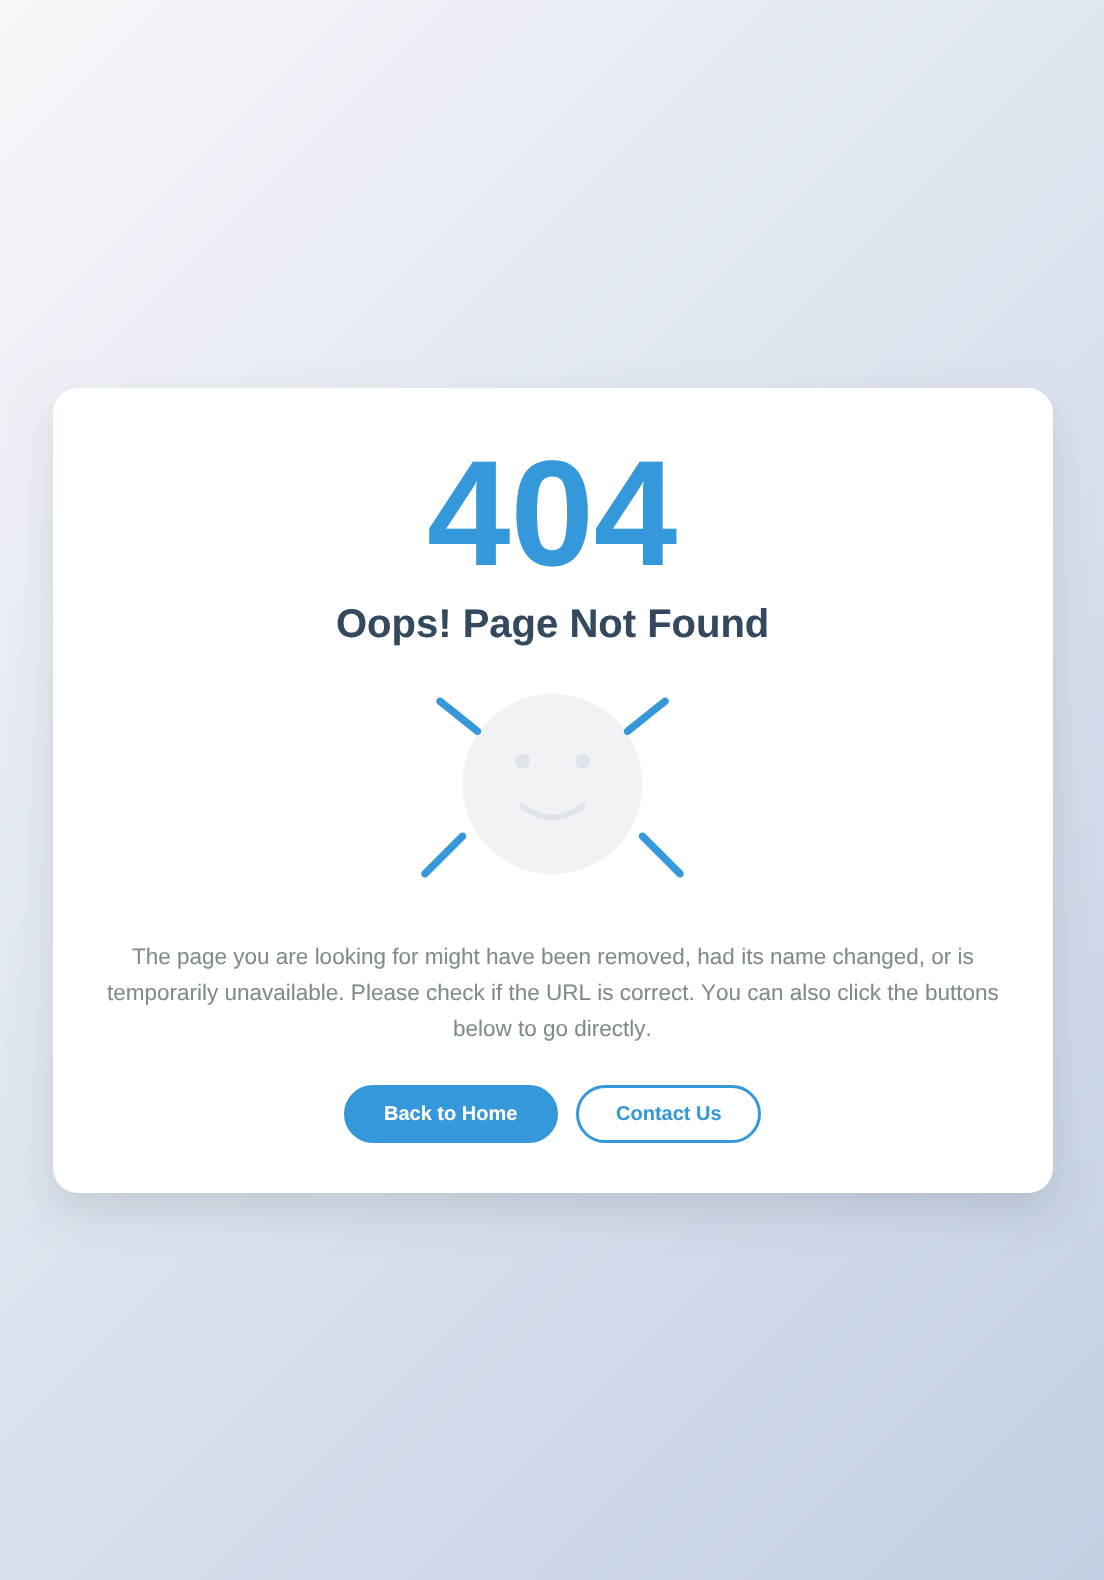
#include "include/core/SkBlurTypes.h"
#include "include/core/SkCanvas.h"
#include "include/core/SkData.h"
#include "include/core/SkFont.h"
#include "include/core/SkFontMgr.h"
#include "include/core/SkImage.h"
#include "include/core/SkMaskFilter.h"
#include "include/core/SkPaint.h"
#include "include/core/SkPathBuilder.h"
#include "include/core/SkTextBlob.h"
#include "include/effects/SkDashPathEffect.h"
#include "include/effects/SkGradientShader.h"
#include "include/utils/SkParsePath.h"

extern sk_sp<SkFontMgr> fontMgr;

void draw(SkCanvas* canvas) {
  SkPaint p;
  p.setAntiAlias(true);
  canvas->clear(SK_ColorWHITE);
  {
    const SkColor colors[] = {SkColorSetRGB(245, 247, 250), SkColorSetRGB(195, 207, 226)};
    const float stops[] = {0, 1};
    const SkPoint ends[] = {{-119, 119}, {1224, 1461}};
    p.setShader(SkGradientShader::MakeLinear(ends, colors, stops, 2, SkTileMode::kClamp));
    p.setAlpha(255);
  }
  canvas->drawRect(SkRect::MakeLTRB(0, 0, 1104, 1580), p);
  p.setShader(nullptr);
  p.setColor(SkColorSetARGB(26, 0, 0, 0));
  p.setMaskFilter(SkMaskFilter::MakeBlur(kNormal_SkBlurStyle, 19));
  canvas->drawRoundRect(SkRect::MakeLTRB(53, 406, 1053, 1211), 25, 25, p);
  p.setMaskFilter(nullptr);
  p.setColor(SK_ColorWHITE);
  canvas->drawRoundRect(SkRect::MakeLTRB(53, 388, 1053, 1193), 25, 25, p);
  canvas->drawImageRect(SkImages::DeferredFromEncodedData(SkData::MakeFromFileName("images/1.png")), SkRect::MakeLTRB(421, 694, 684, 878), SkSamplingOptions());
  p.setColor(SkColorSetRGB(52, 152, 219));
  canvas->drawRoundRect(SkRect::MakeLTRB(345.5f, 1086.5f, 556.5f, 1141.5f), 27.5f, 27.5f, p);
  p.setStyle(SkPaint::kStroke_Style);
  p.setStrokeWidth(3);
  canvas->drawRoundRect(SkRect::MakeLTRB(345.5f, 1086.5f, 556.5f, 1141.5f), 27.5f, 27.5f, p);
  canvas->drawRoundRect(SkRect::MakeLTRB(577.5f, 1086.5f, 759.5f, 1141.5f), 27.5f, 27.5f, p);
  SkFont font1(fontMgr->matchFamilyStyle("Liberation Sans", SkFontStyle::Bold()), 150);
  font1.setSubpixel(true);
  p.setStyle(SkPaint::kFill_Style);
  canvas->drawString("404", 427, 565, font1, p);
  SkFont font2(fontMgr->matchFamilyStyle("Liberation Sans", SkFontStyle::Bold()), 40);
  font2.setSubpixel(true);
  p.setColor(SkColorSetRGB(52, 73, 94));
  canvas->drawString("Oops! Page Not Found", 336, 637, font2, p);
  SkFont font3(fontMgr->matchFamilyStyle("Liberation Sans", SkFontStyle::Normal()), 22.5f);
  font3.setSubpixel(true);
  p.setColor(SkColorSetRGB(127, 140, 141));
  canvas->drawString("The page you are looking for might have been removed, had its name changed, or is", 132, 964, font3, p);
  canvas->drawString("temporarily unavailable. Please check if the URL is correct. You can also click the buttons", 107, 1000, font3, p);
  canvas->drawString("below to go directly.", 453, 1036, font3, p);
  SkFont font4(fontMgr->matchFamilyStyle("Liberation Sans", SkFontStyle::Bold()), 20);
  font4.setSubpixel(true);
  p.setColor(SK_ColorWHITE);
  canvas->drawString("Back to Home", 384, 1120, font4, p);
  p.setColor(SkColorSetRGB(52, 152, 219));
  canvas->drawString("Contact Us", 616, 1120, font4, p);
}
